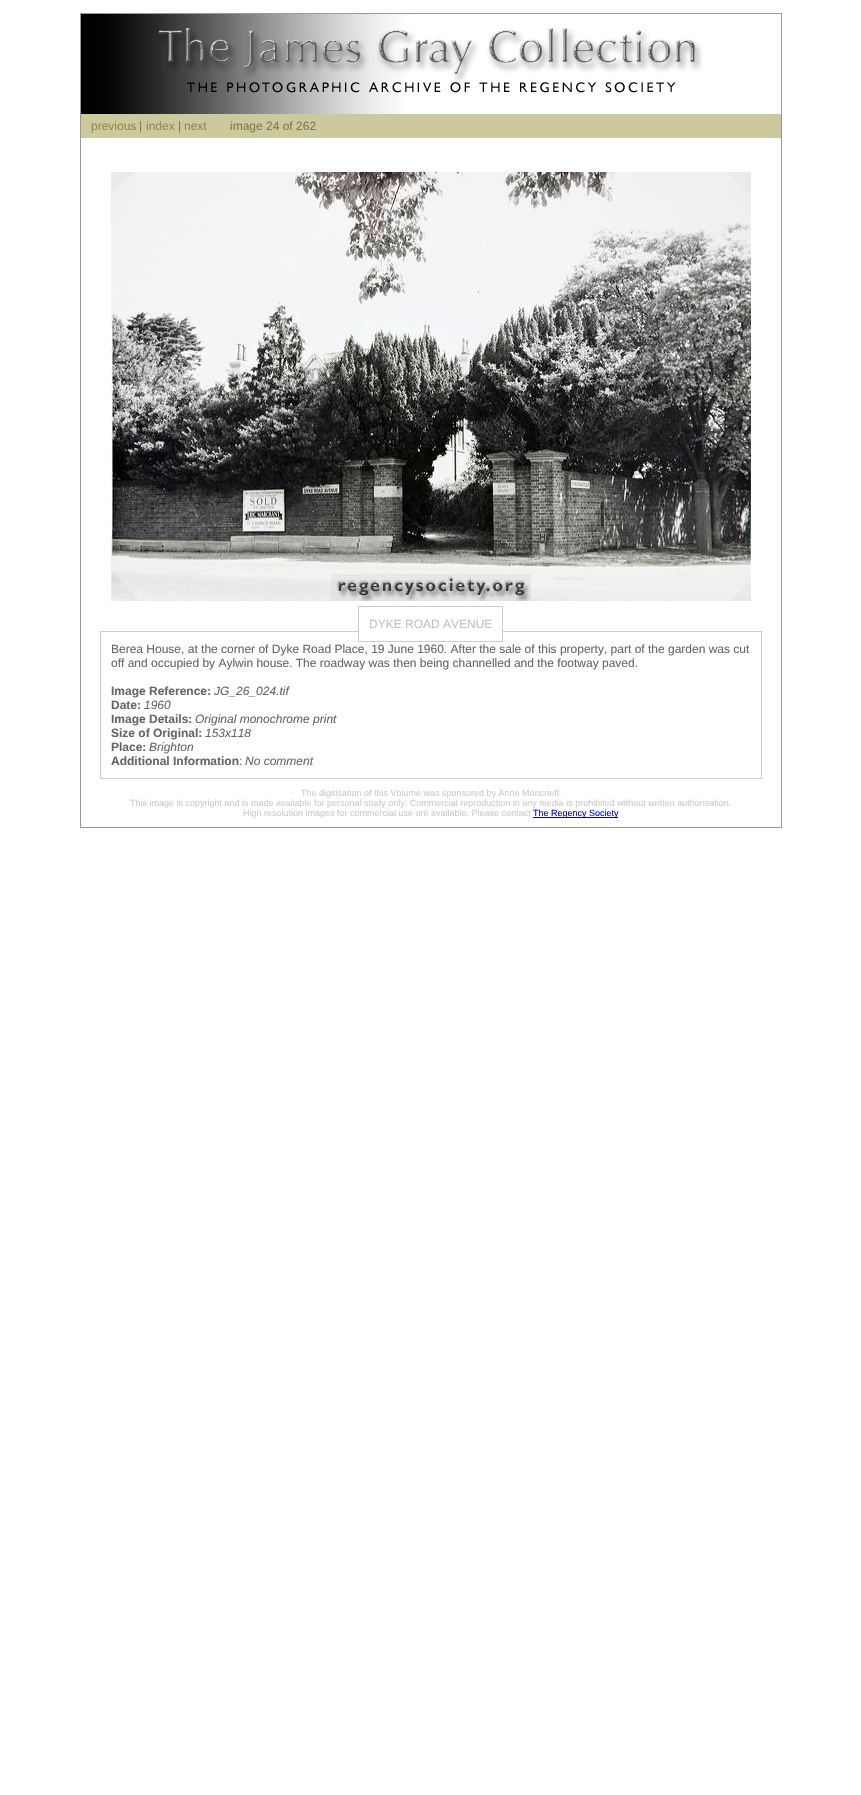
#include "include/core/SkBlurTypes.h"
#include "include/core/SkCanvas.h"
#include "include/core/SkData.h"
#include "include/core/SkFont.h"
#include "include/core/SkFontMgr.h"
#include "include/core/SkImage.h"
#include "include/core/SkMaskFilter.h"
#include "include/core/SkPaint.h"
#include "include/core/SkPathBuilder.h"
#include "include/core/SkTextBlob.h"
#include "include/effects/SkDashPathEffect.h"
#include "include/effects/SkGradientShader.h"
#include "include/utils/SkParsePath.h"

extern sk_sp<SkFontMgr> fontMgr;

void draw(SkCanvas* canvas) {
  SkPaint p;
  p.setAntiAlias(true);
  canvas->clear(SK_ColorWHITE);
  p.setStyle(SkPaint::kStroke_Style);
  p.setStrokeWidth(1);
  p.setColor(SkColorSetRGB(153, 153, 153));
  canvas->drawRect(SkRect::MakeLTRB(80.5f, 13.5f, 781.5f, 827.5f), p);
  canvas->drawImageRect(SkImages::DeferredFromEncodedData(SkData::MakeFromFileName("images/1.png")), SkRect::MakeLTRB(81, 14, 703, 114), SkSamplingOptions());
  p.setStyle(SkPaint::kFill_Style);
  p.setColor(SkColorSetRGB(204, 201, 156));
  canvas->drawRect(SkRect::MakeLTRB(81, 114, 781, 138), p);
  canvas->drawImageRect(SkImages::DeferredFromEncodedData(SkData::MakeFromFileName("images/2.png")), SkRect::MakeLTRB(111, 172, 751, 601), SkSamplingOptions());
  p.setStyle(SkPaint::kStroke_Style);
  p.setColor(SkColorSetRGB(204, 204, 204));
  canvas->drawRect(SkRect::MakeLTRB(100.5f, 631.5f, 761.5f, 778.5f), p);
  p.setStyle(SkPaint::kFill_Style);
  p.setColor(SK_ColorWHITE);
  canvas->drawRect(SkRect::MakeLTRB(359, 631, 502, 632), p);
  p.setStyle(SkPaint::kStroke_Style);
  p.setColor(SkColorSetRGB(204, 204, 204));
  canvas->drawRect(SkRect::MakeLTRB(358.5f, 606.5f, 502.5f, 641.5f), p);
  p.setStyle(SkPaint::kFill_Style);
  p.setColor(SkColorSetRGB(0, 0, 238));
  canvas->drawRect(SkRect::MakeLTRB(533, 817, 618, 818), p);
  SkFont font1(fontMgr->matchFamilyStyle("Liberation Sans", SkFontStyle::Normal()), 12);
  font1.setSubpixel(true);
  p.setColor(SkColorSetRGB(141, 138, 86));
  canvas->drawString("previous", 91, 130, font1, p);
  p.setColor(SkColorSetRGB(123, 121, 88));
  canvas->drawString("|", 139, 130, font1, p);
  p.setColor(SkColorSetRGB(141, 138, 86));
  canvas->drawString("index", 146, 130, font1, p);
  p.setColor(SkColorSetRGB(123, 121, 88));
  canvas->drawString("|", 178, 130, font1, p);
  p.setColor(SkColorSetRGB(141, 138, 86));
  canvas->drawString("next", 184, 130, font1, p);
  p.setColor(SkColorSetRGB(123, 121, 88));
  canvas->drawString("image 24 of 262", 230, 130, font1, p);
  p.setColor(SkColorSetRGB(194, 194, 194));
  canvas->drawString("DYKE ROAD AVENUE", 369, 628, font1, p);
  p.setColor(SkColorSetRGB(102, 102, 102));
  canvas->drawString("Berea House, at the corner of Dyke Road Place, 19 June 1960. After the sale of this property, part of the garden was cut", 111, 653, font1, p);
  canvas->drawString("off and occupied by Aylwin house. The roadway was then being channelled and the footway paved.", 111, 667, font1, p);
  SkFont font2(fontMgr->matchFamilyStyle("Liberation Sans", SkFontStyle::Bold()), 12);
  font2.setSubpixel(true);
  canvas->drawString("Image Reference:", 111, 695, font2, p);
  SkFont font3(fontMgr->matchFamilyStyle("Liberation Sans", SkFontStyle::Italic()), 12);
  font3.setSubpixel(true);
  canvas->drawString("JG_26_024.tif", 214, 695, font3, p);
  canvas->drawString("Date:", 111, 709, font2, p);
  canvas->drawString("1960", 144, 709, font3, p);
  canvas->drawString("Image Details:", 111, 723, font2, p);
  canvas->drawString("Original monochrome print", 195, 723, font3, p);
  canvas->drawString("Size of Original:", 111, 737, font2, p);
  canvas->drawString("153x118", 205, 737, font3, p);
  canvas->drawString("Place:", 111, 751, font2, p);
  canvas->drawString("Brighton", 149, 751, font3, p);
  canvas->drawString("Additional Information", 111, 765, font2, p);
  canvas->drawString(":", 239, 765, font1, p);
  canvas->drawString("No comment", 245, 765, font3, p);
  SkFont font4(fontMgr->matchFamilyStyle("Liberation Sans", SkFontStyle::Normal()), 9);
  font4.setSubpixel(true);
  p.setColor(SkColorSetRGB(204, 204, 204));
  canvas->drawString("The digitisation of this Volume was sponsored by Anne Moncrieff", 301, 796, font4, p);
  canvas->drawString("This image is copyright and is made available for personal study only. Commercial reproduction in any media is prohibited without written authorisation.", 130, 806, font4, p);
  canvas->drawString("High resolution images for commercial use are available. Please contact", 243, 816, font4, p);
  p.setColor(SkColorSetRGB(0, 0, 238));
  canvas->drawString("The Regency Society", 533, 816, font4, p);
}
